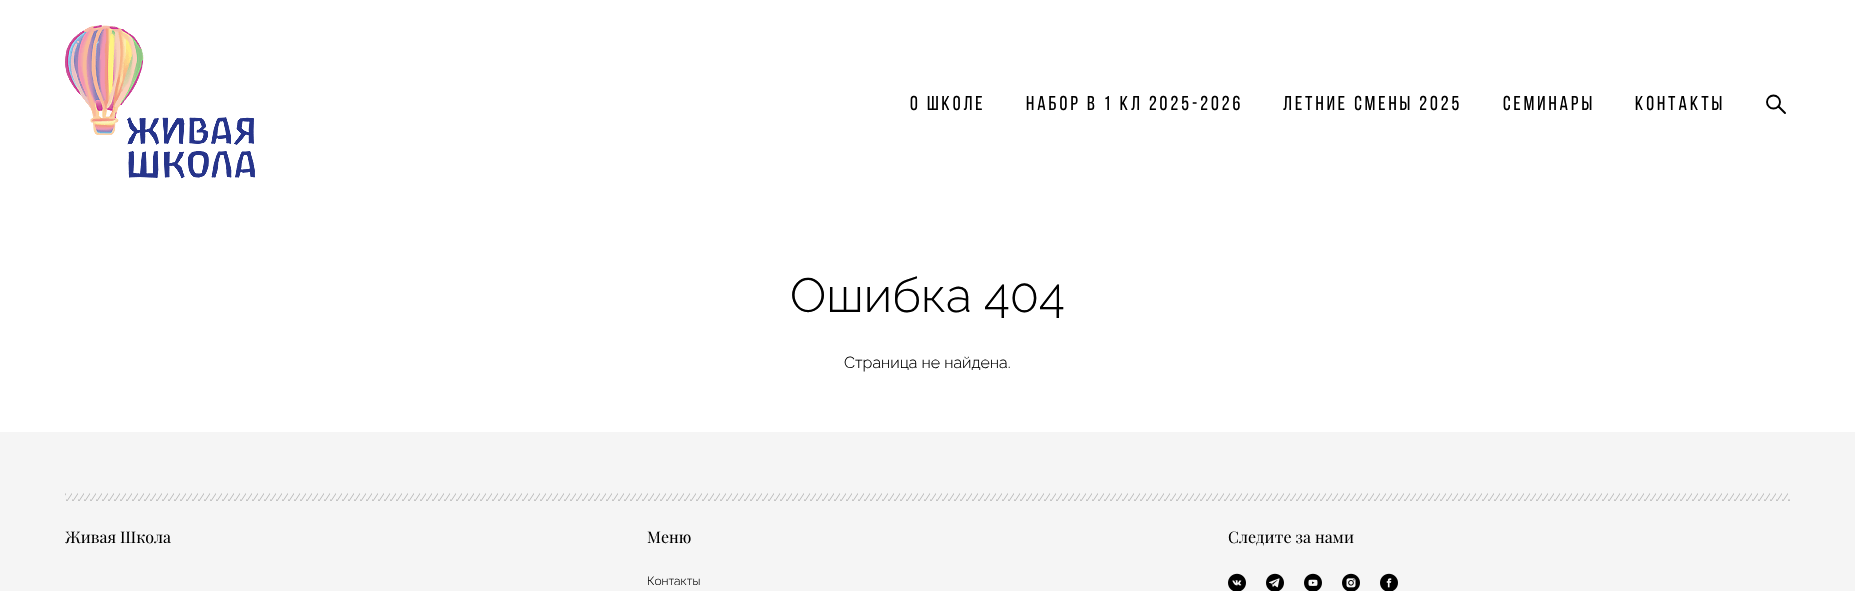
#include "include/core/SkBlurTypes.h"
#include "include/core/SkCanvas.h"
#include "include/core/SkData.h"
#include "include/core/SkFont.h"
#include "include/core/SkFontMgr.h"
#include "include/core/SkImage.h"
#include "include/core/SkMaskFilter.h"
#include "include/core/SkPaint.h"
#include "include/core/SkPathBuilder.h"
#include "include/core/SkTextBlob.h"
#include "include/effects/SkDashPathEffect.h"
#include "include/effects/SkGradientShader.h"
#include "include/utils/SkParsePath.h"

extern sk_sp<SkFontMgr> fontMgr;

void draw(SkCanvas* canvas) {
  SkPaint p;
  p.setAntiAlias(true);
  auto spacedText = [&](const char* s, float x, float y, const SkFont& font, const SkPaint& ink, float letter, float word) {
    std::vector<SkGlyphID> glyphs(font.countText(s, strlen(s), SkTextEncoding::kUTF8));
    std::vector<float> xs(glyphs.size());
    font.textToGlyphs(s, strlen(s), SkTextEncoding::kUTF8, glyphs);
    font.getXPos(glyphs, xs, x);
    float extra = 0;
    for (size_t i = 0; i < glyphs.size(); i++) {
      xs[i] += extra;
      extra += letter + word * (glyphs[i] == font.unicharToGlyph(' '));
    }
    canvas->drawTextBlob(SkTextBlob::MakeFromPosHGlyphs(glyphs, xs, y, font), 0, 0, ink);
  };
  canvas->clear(SK_ColorWHITE);
  canvas->drawImageRect(SkImages::DeferredFromEncodedData(SkData::MakeFromFileName("images/1.png")), SkRect::MakeLTRB(65, 25, 255, 179), SkSamplingOptions());
  p.setStyle(SkPaint::kStroke_Style);
  p.setStrokeWidth(1.9f);
  p.setColor(SK_ColorBLACK);
  canvas->drawCircle(1773.5f, 102, 6.5f, p);
  p.setStrokeCap(SkPaint::kRound_Cap);
  p.setStrokeJoin(SkPaint::kRound_Join);
  canvas->drawPath(SkPathBuilder().moveTo(1778.5f, 106.5f).lineTo(1785, 113).detach(), p);
  p.setStyle(SkPaint::kFill_Style);
  p.setColor(SkColorSetRGB(245, 245, 245));
  canvas->drawRect(SkRect::MakeLTRB(0, 432, 1855, 591), p);
  canvas->drawImageRect(SkImages::DeferredFromEncodedData(SkData::MakeFromFileName("images/2.png")), SkRect::MakeLTRB(65, 493, 1790, 501), SkSamplingOptions());
  canvas->drawImageRect(SkImages::DeferredFromEncodedData(SkData::MakeFromFileName("images/3.png")), SkRect::MakeLTRB(1228, 573, 1246, 591), SkSamplingOptions());
  canvas->drawImageRect(SkImages::DeferredFromEncodedData(SkData::MakeFromFileName("images/4.png")), SkRect::MakeLTRB(1266, 573, 1284, 591), SkSamplingOptions());
  canvas->drawImageRect(SkImages::DeferredFromEncodedData(SkData::MakeFromFileName("images/5.png")), SkRect::MakeLTRB(1304, 573, 1322, 591), SkSamplingOptions());
  canvas->drawImageRect(SkImages::DeferredFromEncodedData(SkData::MakeFromFileName("images/6.png")), SkRect::MakeLTRB(1342, 573, 1360, 591), SkSamplingOptions());
  canvas->drawImageRect(SkImages::DeferredFromEncodedData(SkData::MakeFromFileName("images/7.png")), SkRect::MakeLTRB(1380, 573, 1398, 591), SkSamplingOptions());
  SkFont font1(fontMgr->matchFamilyStyle("Bebas Neue", SkFontStyle::Normal()), 20);
  font1.setSubpixel(true);
  p.setColor(SK_ColorBLACK);
  spacedText("О школе", 910, 110, font1, p, 3, 0);
  spacedText("Набор в 1 кл 2025-2026", 1026, 110, font1, p, 3, 0);
  spacedText("Летние смены 2025", 1283, 110, font1, p, 3, 0);
  spacedText("Семинары", 1503, 110, font1, p, 3, 0);
  spacedText("Контакты", 1635, 110, font1, p, 3, 0);
  SkFont font2(fontMgr->matchFamilyStyle("Raleway", SkFontStyle(300, SkFontStyle::kNormal_Width, SkFontStyle::kUpright_Slant)), 48);
  font2.setSubpixel(true);
  canvas->drawString("Ошибка 404", 790, 312, font2, p);
  SkFont font3(fontMgr->matchFamilyStyle("Raleway", SkFontStyle(300, SkFontStyle::kNormal_Width, SkFontStyle::kUpright_Slant)), 16);
  font3.setSubpixel(true);
  canvas->drawString("Страница не найдена.", 844, 368, font3, p);
  SkFont font4(fontMgr->matchFamilyStyle("playfair display", SkFontStyle::Normal()), 16);
  font4.setSubpixel(true);
  canvas->drawString("Живая Школа", 65, 543, font4, p);
  canvas->drawString("Меню", 647, 543, font4, p);
  SkFont font5(fontMgr->matchFamilyStyle("Raleway", SkFontStyle(300, SkFontStyle::kNormal_Width, SkFontStyle::kUpright_Slant)), 12);
  font5.setSubpixel(true);
  canvas->drawString("Контакты", 647, 585, font5, p);
  canvas->drawString("Следите за нами", 1228, 543, font4, p);
}
